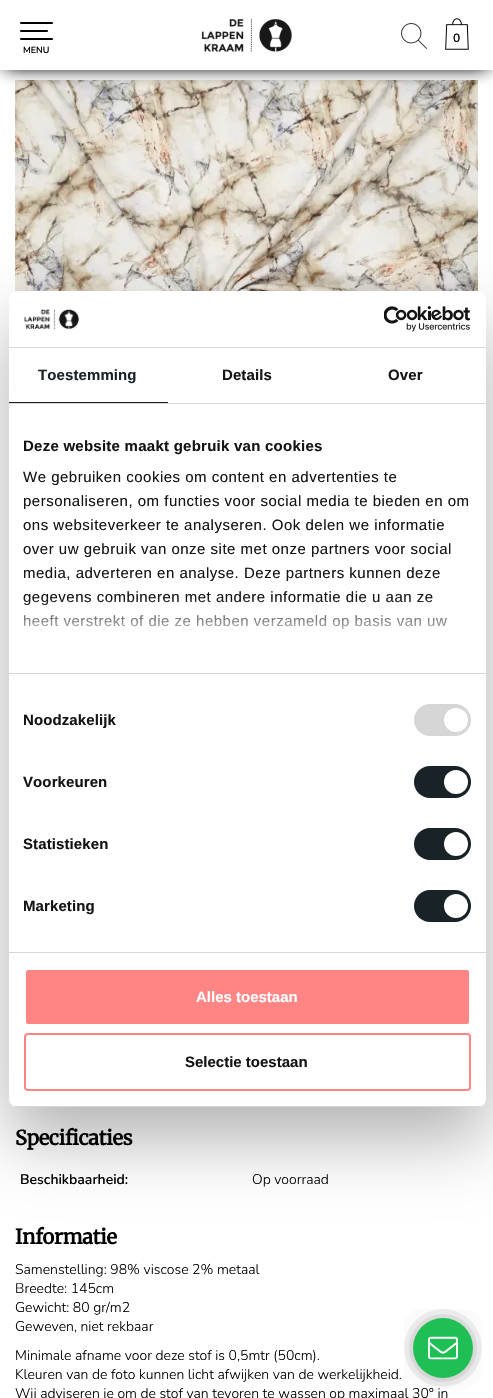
#include "include/core/SkBlurTypes.h"
#include "include/core/SkCanvas.h"
#include "include/core/SkData.h"
#include "include/core/SkFont.h"
#include "include/core/SkFontMgr.h"
#include "include/core/SkImage.h"
#include "include/core/SkMaskFilter.h"
#include "include/core/SkPaint.h"
#include "include/core/SkPathBuilder.h"
#include "include/core/SkTextBlob.h"
#include "include/effects/SkDashPathEffect.h"
#include "include/effects/SkGradientShader.h"
#include "include/utils/SkParsePath.h"

extern sk_sp<SkFontMgr> fontMgr;

void draw(SkCanvas* canvas) {
  SkPaint p;
  p.setAntiAlias(true);
  auto spacedText = [&](const char* s, float x, float y, const SkFont& font, const SkPaint& ink, float letter, float word) {
    std::vector<SkGlyphID> glyphs(font.countText(s, strlen(s), SkTextEncoding::kUTF8));
    std::vector<float> xs(glyphs.size());
    font.textToGlyphs(s, strlen(s), SkTextEncoding::kUTF8, glyphs);
    font.getXPos(glyphs, xs, x);
    float extra = 0;
    for (size_t i = 0; i < glyphs.size(); i++) {
      xs[i] += extra;
      extra += letter + word * (glyphs[i] == font.unicharToGlyph(' '));
    }
    canvas->drawTextBlob(SkTextBlob::MakeFromPosHGlyphs(glyphs, xs, y, font), 0, 0, ink);
  };
  canvas->clear(SK_ColorWHITE);
  canvas->drawImageRect(SkImages::DeferredFromEncodedData(SkData::MakeFromFileName("images/4.png")), SkRect::MakeLTRB(15, 80, 478, 292), SkSamplingOptions());
  p.setColor(SK_ColorBLACK);
  p.setMaskFilter(SkMaskFilter::MakeBlur(kNormal_SkBlurStyle, 10));
  canvas->drawRect(SkRect::MakeLTRB(6, 6, 487, 64), p);
  p.setMaskFilter(nullptr);
  p.setMaskFilter(SkMaskFilter::MakeBlur(kNormal_SkBlurStyle, 10));
  canvas->drawRect(SkRect::MakeLTRB(6, 6, 487, 64), p);
  p.setMaskFilter(nullptr);
  p.setColor(SK_ColorWHITE);
  canvas->drawRect(SkRect::MakeLTRB(0, 0, 493, 70), p);
  canvas->drawImageRect(SkImages::DeferredFromEncodedData(SkData::MakeFromFileName("images/1.png")), SkRect::MakeLTRB(201, 19, 292, 52), SkSamplingOptions());
  canvas->drawImageRect(SkImages::DeferredFromEncodedData(SkData::MakeFromFileName("images/2.png")), SkRect::MakeLTRB(401, 23, 427, 49), SkSamplingOptions());
  p.setColor(SK_ColorBLACK);
  canvas->drawRoundRect(SkRect::MakeLTRB(20, 22, 53, 24), 1, 1, p);
  canvas->drawRoundRect(SkRect::MakeLTRB(20, 30, 48, 32), 1, 1, p);
  canvas->drawRoundRect(SkRect::MakeLTRB(20, 38, 53, 40), 1, 1, p);
  p.setColor(SkColorSetARGB(77, 0, 0, 0));
  p.setMaskFilter(SkMaskFilter::MakeBlur(kNormal_SkBlurStyle, 34));
  canvas->drawRoundRect(SkRect::MakeLTRB(9, 323, 486, 1139), 8, 8, p);
  p.setMaskFilter(nullptr);
  p.setColor(SK_ColorWHITE);
  canvas->drawRoundRect(SkRect::MakeLTRB(9, 291, 486, 1107), 8, 8, p);
  p.setColor(SkColorSetRGB(214, 214, 214));
  canvas->drawRect(SkRect::MakeLTRB(9, 347, 486, 348), p);
  canvas->drawImageRect(SkImages::DeferredFromEncodedData(SkData::MakeFromFileName("images/5.png")), SkRect::MakeLTRB(24, 309, 79, 329), SkSamplingOptions());
  canvas->drawImageRect(SkImages::DeferredFromEncodedData(SkData::MakeFromFileName("images/6.png")), SkRect::MakeLTRB(384, 306, 471, 332), SkSamplingOptions());
  canvas->drawRect(SkRect::MakeLTRB(9, 403, 486, 404), p);
  p.setColor(SkColorSetRGB(25, 34, 39));
  canvas->drawRect(SkRect::MakeLTRB(9, 402, 168, 403), p);
  p.setColor(SkColorSetRGB(214, 214, 214));
  canvas->drawRect(SkRect::MakeLTRB(9, 673, 486, 674), p);
  canvas->drawRect(SkRect::MakeLTRB(9, 952, 486, 953), p);
  canvas->drawRoundRect(SkRect::MakeLTRB(414, 704, 471, 736), 16, 16, p);
  p.setColor(SK_ColorWHITE);
  canvas->drawCircle(456, 720, 12, p);
  p.setColor(SkColorSetRGB(25, 34, 39));
  canvas->drawRoundRect(SkRect::MakeLTRB(414, 766, 471, 798), 16, 16, p);
  p.setColor(SK_ColorWHITE);
  canvas->drawCircle(456, 782, 12, p);
  p.setColor(SkColorSetRGB(25, 34, 39));
  canvas->drawRoundRect(SkRect::MakeLTRB(414, 828, 471, 860), 16, 16, p);
  p.setColor(SK_ColorWHITE);
  canvas->drawCircle(456, 844, 12, p);
  p.setColor(SkColorSetRGB(25, 34, 39));
  canvas->drawRoundRect(SkRect::MakeLTRB(414, 890, 471, 922), 16, 16, p);
  p.setColor(SK_ColorWHITE);
  canvas->drawCircle(456, 906, 12, p);
  canvas->save();
  canvas->clipPath(SkPathBuilder().moveTo(17, 291).lineTo(478, 291).cubicTo(482.5f, 291, 486, 294.5f, 486, 299).lineTo(486, 1099).cubicTo(486, 1103.5f, 482.5f, 1107, 478, 1107).lineTo(17, 1107).cubicTo(12.5f, 1107, 9, 1103.5f, 9, 1099).lineTo(9, 299).cubicTo(9, 294.5f, 12.5f, 291, 17, 291).close().detach(), true);
  p.setColor(SkColorSetRGB(214, 214, 214));
  canvas->drawRect(SkRect::MakeLTRB(9, 1106, 486, 1107), p);
  canvas->restore();
  p.setColor(SkColorSetRGB(255, 133, 133));
  canvas->drawRoundRect(SkRect::MakeLTRB(25, 969, 470, 1025), 3, 3, p);
  p.setStyle(SkPaint::kStroke_Style);
  p.setStrokeWidth(2);
  p.setColor(SK_ColorWHITE);
  canvas->drawRoundRect(SkRect::MakeLTRB(25, 969, 470, 1025), 3, 3, p);
  p.setColor(SkColorSetRGB(255, 133, 133));
  canvas->drawRoundRect(SkRect::MakeLTRB(25, 1034, 470, 1090), 3, 3, p);
  SkFont font1(fontMgr->matchFamilyStyle("Nunito", SkFontStyle(600, SkFontStyle::kNormal_Width, SkFontStyle::kUpright_Slant)), 12);
  font1.setSubpixel(true);
  p.setStyle(SkPaint::kFill_Style);
  p.setColor(SK_ColorBLACK);
  canvas->drawString("0", 453, 42, font1, p);
  canvas->drawImageRect(SkImages::DeferredFromEncodedData(SkData::MakeFromFileName("images/3.png")), SkRect::MakeLTRB(445, 18, 469, 50), SkSamplingOptions());
  SkFont font2(fontMgr->matchFamilyStyle("Nunito", SkFontStyle(600, SkFontStyle::kNormal_Width, SkFontStyle::kUpright_Slant)), 9);
  font2.setSubpixel(true);
  canvas->drawString("MENU", 23, 53, font2, p);
  SkFont font3(fontMgr->matchFamilyStyle("Merriweather", SkFontStyle::Bold()), 20);
  font3.setSubpixel(true);
  spacedText("Specificaties", 15, 1145, font3, p, -0.25f, 0);
  SkFont font4(fontMgr->matchFamilyStyle("Nunito", SkFontStyle(600, SkFontStyle::kNormal_Width, SkFontStyle::kUpright_Slant)), 14);
  font4.setSubpixel(true);
  canvas->drawString("Beschikbaarheid:", 20, 1184, font4, p);
  SkFont font5(fontMgr->matchFamilyStyle("Nunito", SkFontStyle(300, SkFontStyle::kNormal_Width, SkFontStyle::kUpright_Slant)), 14);
  font5.setSubpixel(true);
  canvas->drawString("Op voorraad", 252, 1184, font5, p);
  spacedText("Informatie", 15, 1244, font3, p, -0.25f, 0);
  canvas->drawString("Samenstelling: 98% viscose 2% metaal", 15, 1274, font5, p);
  canvas->drawString("Breedte: 145cm", 15, 1293, font5, p);
  canvas->drawString("Gewicht: 80 gr/m2", 15, 1312, font5, p);
  canvas->drawString("Geweven, niet rekbaar", 15, 1331, font5, p);
  canvas->drawString("Minimale afname voor deze stof is 0,5mtr (50cm).", 15, 1360, font5, p);
  canvas->drawString("Kleuren van de foto kunnen licht afwijken van de werkelijkheid.", 15, 1379, font5, p);
  canvas->drawString("Wij adviseren je om de stof van tevoren te wassen op maximaal 30° in", 15, 1398, font5, p);
  SkFont font6(fontMgr->matchFamilyStyle("Liberation Sans", SkFontStyle::Bold()), 15);
  font6.setSubpixel(true);
  p.setColor(SkColorSetRGB(25, 34, 39));
  spacedText("Toestemming", 38, 380, font6, p, 0.1f, 0);
  p.setColor(SkColorSetRGB(20, 20, 20));
  spacedText("Details", 222, 380, font6, p, 0.1f, 0);
  spacedText("Over", 388, 380, font6, p, 0.1f, 0);
  spacedText("Deze website maakt gebruik van cookies", 23, 451, font6, p, 0.25f, 0);
  SkFont font7(fontMgr->matchFamilyStyle("Liberation Sans", SkFontStyle::Normal()), 15);
  font7.setSubpixel(true);
  spacedText("We gebruiken cookies om content en advertenties te", 23, 482, font7, p, 0.5f, 0);
  spacedText("personaliseren, om functies voor social media te bieden en om", 23, 506, font7, p, 0.5f, 0);
  spacedText("ons websiteverkeer te analyseren. Ook delen we informatie", 23, 530, font7, p, 0.5f, 0);
  spacedText("over uw gebruik van onze site met onze partners voor social", 23, 554, font7, p, 0.5f, 0);
  spacedText("media, adverteren en analyse. Deze partners kunnen deze", 23, 578, font7, p, 0.5f, 0);
  spacedText("gegevens combineren met andere informatie die u aan ze", 23, 602, font7, p, 0.5f, 0);
  spacedText("heeft verstrekt of die ze hebben verzameld op basis van uw", 23, 626, font7, p, 0.5f, 0);
  {
    const SkColor colors[] = {SK_ColorWHITE, SkColorSetARGB(204, 255, 255, 255), SkColorSetARGB(0, 255, 255, 255)};
    const float stops[] = {0, 0.5f, 1};
    const SkPoint ends[] = {{241, 673}, {241, 598}};
    p.setShader(SkGradientShader::MakeLinear(ends, colors, stops, 3, SkTileMode::kClamp));
    p.setAlpha(255);
  }
  canvas->drawRect(SkRect::MakeLTRB(24, 599, 447, 630), p);
  p.setShader(nullptr);
  p.setColor(SkColorSetRGB(20, 20, 20));
  spacedText("Noodzakelijk", 23, 725, font6, p, 0.1f, 0);
  spacedText("Voorkeuren", 23, 787, font6, p, 0.1f, 0);
  spacedText("Statistieken", 23, 849, font6, p, 0.1f, 0);
  spacedText("Marketing", 23, 911, font6, p, 0.1f, 0);
  p.setColor(SK_ColorWHITE);
  canvas->drawString("Alles toestaan", 196, 1002, font6, p);
  p.setColor(SkColorSetRGB(20, 20, 20));
  canvas->drawString("Selectie toestaan", 185, 1067, font6, p);
  canvas->drawImageRect(SkImages::DeferredFromEncodedData(SkData::MakeFromFileName("images/7.png")), SkRect::MakeLTRB(404, 1309, 482, 1390), SkSamplingOptions());
}
